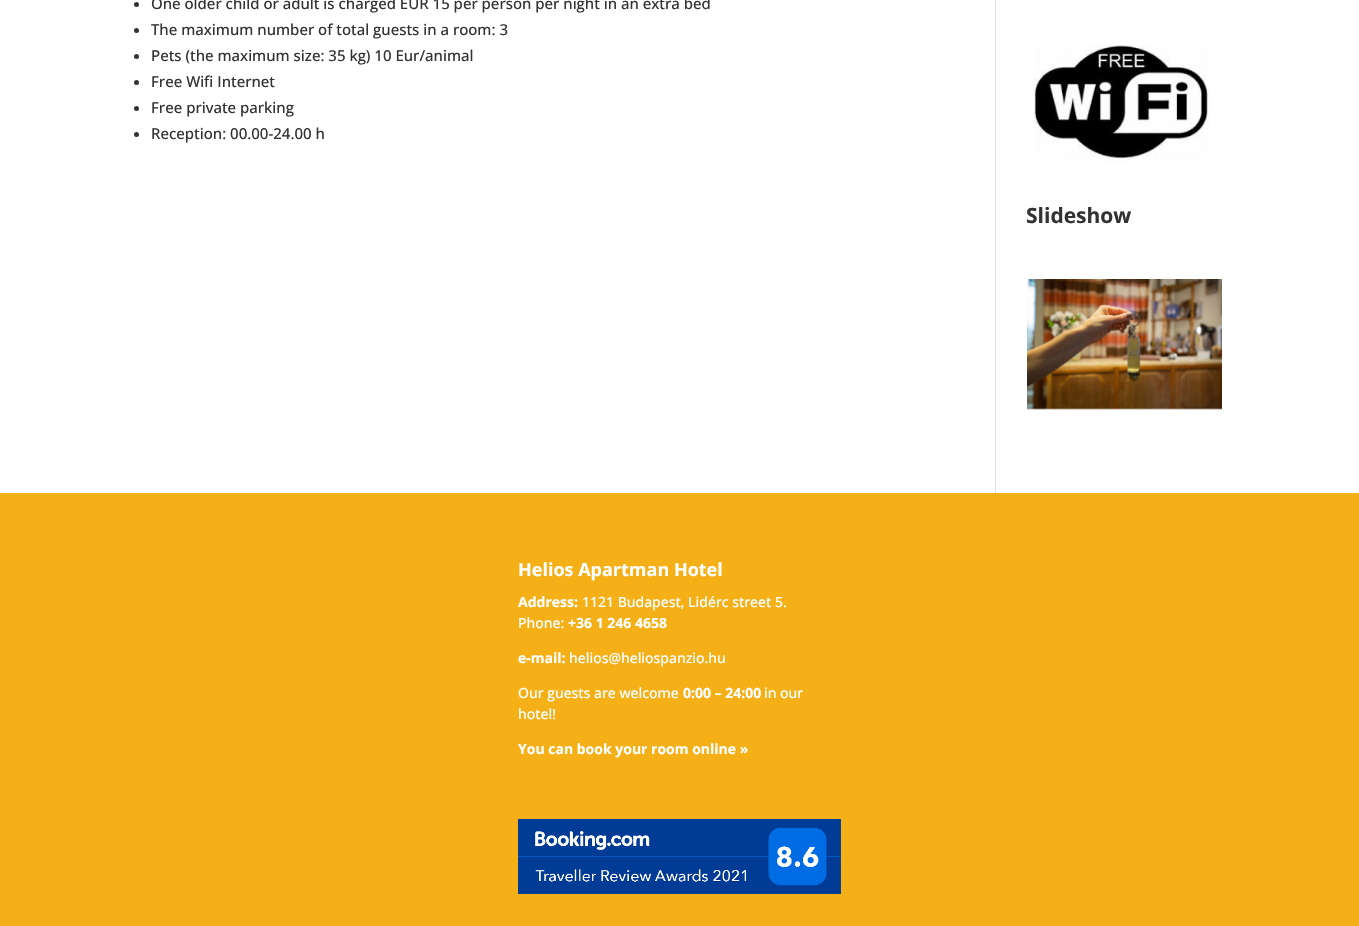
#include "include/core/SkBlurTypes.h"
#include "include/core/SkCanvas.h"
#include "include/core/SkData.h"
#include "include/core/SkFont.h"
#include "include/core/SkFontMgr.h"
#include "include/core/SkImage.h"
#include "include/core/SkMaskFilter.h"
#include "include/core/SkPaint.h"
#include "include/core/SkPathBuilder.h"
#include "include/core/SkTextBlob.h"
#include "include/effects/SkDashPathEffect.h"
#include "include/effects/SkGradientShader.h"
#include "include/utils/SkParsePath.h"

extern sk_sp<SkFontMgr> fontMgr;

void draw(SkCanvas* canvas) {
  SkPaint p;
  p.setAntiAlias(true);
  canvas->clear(SK_ColorWHITE);
  p.setColor(SkColorSetRGB(51, 51, 51));
  canvas->drawCircle(136.5f, 4.5f, 2.5f, p);
  canvas->drawCircle(136.5f, 30.5f, 2.5f, p);
  canvas->drawCircle(136.5f, 56.5f, 2.5f, p);
  canvas->drawCircle(136.5f, 82.5f, 2.5f, p);
  canvas->drawCircle(136.5f, 108.5f, 2.5f, p);
  canvas->drawCircle(136.5f, 134.5f, 2.5f, p);
  canvas->drawImageRect(SkImages::DeferredFromEncodedData(SkData::MakeFromFileName("images/1.png")), SkRect::MakeLTRB(1033, 45, 1210, 163), SkSamplingOptions());
  canvas->drawImageRect(SkImages::DeferredFromEncodedData(SkData::MakeFromFileName("images/2.png")), SkRect::MakeLTRB(1027, 279, 1222, 410), SkSamplingOptions());
  p.setColor(SkColorSetRGB(226, 226, 226));
  canvas->drawRect(SkRect::MakeLTRB(995, 0, 996, 493), p);
  p.setColor(SkColorSetRGB(245, 176, 24));
  canvas->drawRect(SkRect::MakeLTRB(0, 493, 1359, 926), p);
  canvas->drawImageRect(SkImages::DeferredFromEncodedData(SkData::MakeFromFileName("images/3.png")), SkRect::MakeLTRB(518, 819, 841, 894), SkSamplingOptions());
  SkFont font1(fontMgr->matchFamilyStyle("Open Sans", SkFontStyle(500, SkFontStyle::kNormal_Width, SkFontStyle::kUpright_Slant)), 15);
  font1.setSubpixel(true);
  p.setColor(SkColorSetRGB(51, 51, 51));
  canvas->drawString("One older child or adult is charged EUR 15 per person per night in an extra bed", 151, 9, font1, p);
  canvas->drawString("The maximum number of total guests in a room: 3", 151, 35, font1, p);
  canvas->drawString("Pets (the maximum size: 35 kg) 10 Eur/animal", 151, 61, font1, p);
  canvas->drawString("Free Wifi Internet", 151, 87, font1, p);
  canvas->drawString("Free private parking", 151, 113, font1, p);
  canvas->drawString("Reception: 00.00-24.00 h", 151, 139, font1, p);
  SkFont font2(fontMgr->matchFamilyStyle("Open Sans", SkFontStyle::Bold()), 21);
  font2.setSubpixel(true);
  canvas->drawString("Slideshow", 1026, 223, font2, p);
  SkFont font3(fontMgr->matchFamilyStyle("Open Sans", SkFontStyle::Bold()), 18);
  font3.setSubpixel(true);
  p.setColor(SK_ColorWHITE);
  canvas->drawString("Helios Apartman Hotel", 518, 576, font3, p);
  SkFont font4(fontMgr->matchFamilyStyle("Open Sans", SkFontStyle::Bold()), 14);
  font4.setSubpixel(true);
  canvas->drawString("Address:", 518, 607, font4, p);
  SkFont font5(fontMgr->matchFamilyStyle("Open Sans", SkFontStyle(500, SkFontStyle::kNormal_Width, SkFontStyle::kUpright_Slant)), 14);
  font5.setSubpixel(true);
  canvas->drawString("1121 Budapest, Lidérc street 5.", 582, 607, font5, p);
  canvas->drawString("Phone:", 518, 628, font5, p);
  canvas->drawString("+36 1 246 4658", 568, 628, font4, p);
  canvas->drawString("e-mail:", 518, 663, font4, p);
  canvas->drawString("helios@heliospanzio.hu", 569, 663, font5, p);
  canvas->drawString("Our guests are welcome", 518, 698, font5, p);
  canvas->drawString("0:00 – 24:00", 683, 698, font4, p);
  canvas->drawString("in our", 764, 698, font5, p);
  canvas->drawString("hotel!", 518, 719, font5, p);
  canvas->drawString("You can book your room online »", 518, 754, font4, p);
}
